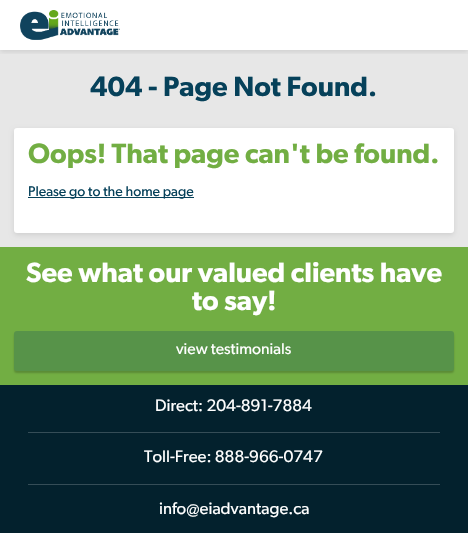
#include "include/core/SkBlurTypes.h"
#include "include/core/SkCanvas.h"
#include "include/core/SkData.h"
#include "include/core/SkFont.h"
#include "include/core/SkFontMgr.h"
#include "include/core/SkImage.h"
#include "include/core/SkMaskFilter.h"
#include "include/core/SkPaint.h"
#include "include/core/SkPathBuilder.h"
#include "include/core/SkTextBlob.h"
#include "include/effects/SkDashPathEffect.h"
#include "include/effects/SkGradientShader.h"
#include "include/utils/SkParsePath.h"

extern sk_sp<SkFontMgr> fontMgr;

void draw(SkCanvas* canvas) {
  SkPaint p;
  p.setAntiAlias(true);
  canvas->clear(SK_ColorWHITE);
  p.setColor(SkColorSetRGB(231, 231, 231));
  canvas->drawRect(SkRect::MakeLTRB(0, 50, 468, 247), p);
  canvas->save();
  canvas->clipRect(SkRect::MakeLTRB(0, 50, 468, 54));
  p.setColor(SkColorSetARGB(26, 0, 0, 0));
  p.setMaskFilter(SkMaskFilter::MakeBlur(kNormal_SkBlurStyle, 2.5f));
  canvas->drawRect(SkRect::MakeLTRB(0, 2, 468, 52), p);
  p.setMaskFilter(nullptr);
  canvas->restore();
  canvas->drawImageRect(SkImages::DeferredFromEncodedData(SkData::MakeFromFileName("images/1.png")), SkRect::MakeLTRB(20, 10, 120, 40), SkSamplingOptions());
  p.setMaskFilter(SkMaskFilter::MakeBlur(kNormal_SkBlurStyle, 2.5f));
  canvas->drawRoundRect(SkRect::MakeLTRB(14, 130, 454, 235), 3, 3, p);
  p.setMaskFilter(nullptr);
  p.setColor(SK_ColorWHITE);
  canvas->drawRoundRect(SkRect::MakeLTRB(14, 128, 454, 233), 3, 3, p);
  p.setColor(SkColorSetRGB(6, 65, 90));
  canvas->drawRect(SkRect::MakeLTRB(28, 197, 194, 198), p);
  p.setColor(SkColorSetRGB(3, 33, 45));
  canvas->drawRect(SkRect::MakeLTRB(0, 385, 468, 533), p);
  p.setColor(SkColorSetRGB(114, 174, 67));
  canvas->drawRect(SkRect::MakeLTRB(0, 247, 468, 385), p);
  p.setColor(SkColorSetARGB(51, 0, 0, 0));
  p.setMaskFilter(SkMaskFilter::MakeBlur(kNormal_SkBlurStyle, 1));
  canvas->drawRoundRect(SkRect::MakeLTRB(14, 333, 454, 373), 3, 3, p);
  p.setMaskFilter(nullptr);
  p.setColor(SkColorSetRGB(87, 147, 73));
  canvas->drawRoundRect(SkRect::MakeLTRB(14, 331, 454, 371), 3, 3, p);
  p.setColor(SkColorSetRGB(53, 77, 87));
  canvas->drawRect(SkRect::MakeLTRB(28, 432, 440, 433), p);
  canvas->drawRect(SkRect::MakeLTRB(28, 484, 440, 485), p);
  SkFont font1(fontMgr->matchFamilyStyle("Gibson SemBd", SkFontStyle(600, SkFontStyle::kNormal_Width, SkFontStyle::kUpright_Slant)), 28);
  font1.setSubpixel(true);
  p.setColor(SkColorSetRGB(6, 65, 90));
  canvas->drawString("404 - Page Not Found.", 90, 96, font1, p);
  p.setColor(SkColorSetRGB(114, 174, 67));
  canvas->drawString("Oops! That page can't be found.", 28, 163, font1, p);
  SkFont font2(fontMgr->matchFamilyStyle("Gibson", SkFontStyle::Normal()), 14);
  font2.setSubpixel(true);
  p.setColor(SkColorSetRGB(6, 65, 90));
  canvas->drawString("Please go to the home page", 28, 196, font2, p);
  p.setColor(SK_ColorWHITE);
  canvas->drawString("See what our valued clients have", 26, 282, font1, p);
  canvas->drawString("to say!", 192, 310, font1, p);
  SkFont font3(fontMgr->matchFamilyStyle("Gibson", SkFontStyle::Normal()), 15.75f);
  font3.setSubpixel(true);
  canvas->drawString("view testimonials", 176, 354, font3, p);
  SkFont font4(fontMgr->matchFamilyStyle("Gibson", SkFontStyle::Normal()), 16.75f);
  font4.setSubpixel(true);
  canvas->drawString("Direct: 204-891-7884", 155, 411, font4, p);
  canvas->drawString("Toll-Free: 888-966-0747", 144, 462, font4, p);
  canvas->drawString("info@eiadvantage.ca", 159, 514, font4, p);
}
